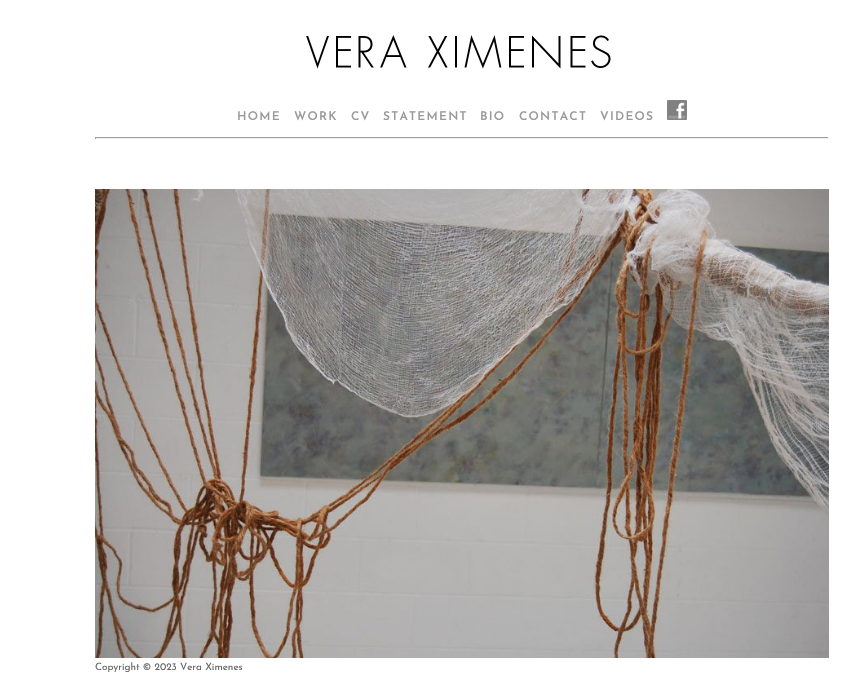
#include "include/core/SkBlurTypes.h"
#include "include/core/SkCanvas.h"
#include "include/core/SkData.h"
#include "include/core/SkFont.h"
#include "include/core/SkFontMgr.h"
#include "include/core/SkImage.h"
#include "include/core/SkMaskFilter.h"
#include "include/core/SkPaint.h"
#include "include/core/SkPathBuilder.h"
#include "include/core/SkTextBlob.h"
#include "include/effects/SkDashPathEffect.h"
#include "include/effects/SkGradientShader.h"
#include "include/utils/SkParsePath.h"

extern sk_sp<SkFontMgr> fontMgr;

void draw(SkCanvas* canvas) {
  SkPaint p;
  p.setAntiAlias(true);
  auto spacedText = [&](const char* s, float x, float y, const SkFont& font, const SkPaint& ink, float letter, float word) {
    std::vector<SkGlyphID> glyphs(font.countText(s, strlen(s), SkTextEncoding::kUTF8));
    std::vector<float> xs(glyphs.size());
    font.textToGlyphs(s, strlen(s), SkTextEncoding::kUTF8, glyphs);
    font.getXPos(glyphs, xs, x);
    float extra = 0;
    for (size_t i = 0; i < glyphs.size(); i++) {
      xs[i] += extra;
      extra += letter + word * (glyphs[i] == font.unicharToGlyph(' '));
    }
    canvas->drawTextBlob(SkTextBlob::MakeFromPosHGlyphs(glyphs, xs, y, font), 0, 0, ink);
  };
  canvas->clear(SK_ColorWHITE);
  canvas->drawImageRect(SkImages::DeferredFromEncodedData(SkData::MakeFromFileName("images/1.png")), SkRect::MakeLTRB(306, 35, 611, 69), SkSamplingOptions());
  canvas->drawImageRect(SkImages::DeferredFromEncodedData(SkData::MakeFromFileName("images/2.png")), SkRect::MakeLTRB(667, 100, 687, 120), SkSamplingOptions());
  p.setColor(SkColorSetRGB(159, 159, 159));
  canvas->drawRect(SkRect::MakeLTRB(95, 137, 829, 138), p);
  p.setColor(SkColorSetRGB(238, 238, 238));
  canvas->drawRect(SkRect::MakeLTRB(828, 137, 829, 139), p);
  canvas->drawRect(SkRect::MakeLTRB(95, 138, 829, 139), p);
  p.setColor(SkColorSetRGB(159, 159, 159));
  canvas->drawRect(SkRect::MakeLTRB(95, 137, 96, 139), p);
  canvas->drawImageRect(SkImages::DeferredFromEncodedData(SkData::MakeFromFileName("images/3.png")), SkRect::MakeLTRB(95, 189, 829, 658), SkSamplingOptions());
  SkFont font1(fontMgr->matchFamilyStyle("Josefin Sans", SkFontStyle(600, SkFontStyle::kNormal_Width, SkFontStyle::kUpright_Slant)), 12);
  font1.setSubpixel(true);
  p.setColor(SkColorSetRGB(153, 153, 153));
  spacedText("HOME", 237, 120, font1, p, 1.25f, 0);
  spacedText("WORK", 294, 120, font1, p, 1.25f, 0);
  spacedText("CV", 351, 120, font1, p, 1.25f, 0);
  spacedText("STATEMENT", 383, 120, font1, p, 1.25f, 0);
  spacedText("BIO", 480, 120, font1, p, 1.25f, 0);
  spacedText("CONTACT", 519, 120, font1, p, 1.25f, 0);
  spacedText("VIDEOS", 600, 120, font1, p, 1.25f, 0);
  SkFont font2(fontMgr->matchFamilyStyle("Josefin Sans", SkFontStyle::Normal()), 10);
  font2.setSubpixel(true);
  p.setColor(SkColorSetRGB(102, 102, 102));
  canvas->drawString("Copyright © 2023 Vera Ximenes", 95, 670, font2, p);
}
